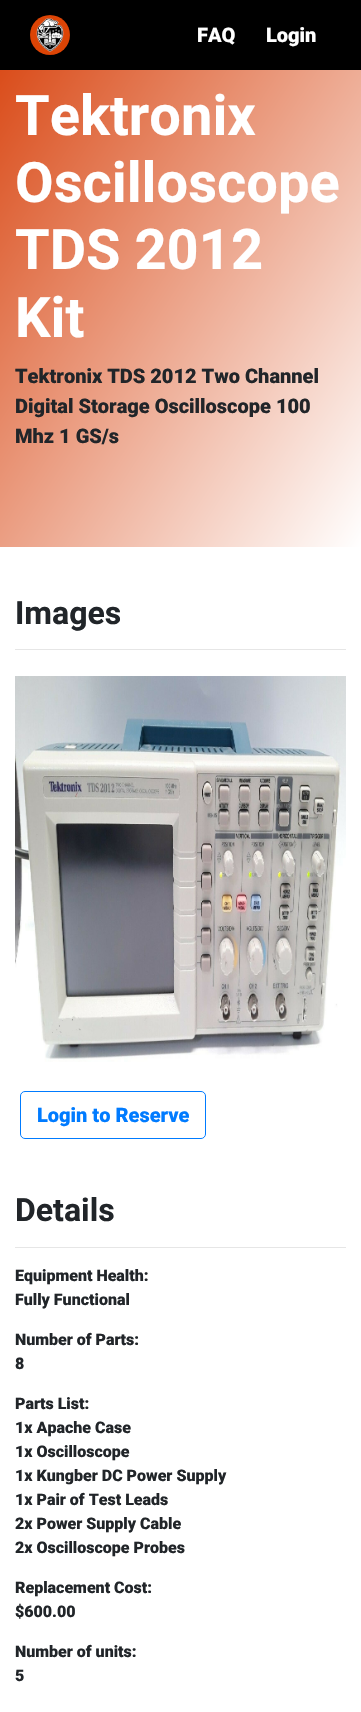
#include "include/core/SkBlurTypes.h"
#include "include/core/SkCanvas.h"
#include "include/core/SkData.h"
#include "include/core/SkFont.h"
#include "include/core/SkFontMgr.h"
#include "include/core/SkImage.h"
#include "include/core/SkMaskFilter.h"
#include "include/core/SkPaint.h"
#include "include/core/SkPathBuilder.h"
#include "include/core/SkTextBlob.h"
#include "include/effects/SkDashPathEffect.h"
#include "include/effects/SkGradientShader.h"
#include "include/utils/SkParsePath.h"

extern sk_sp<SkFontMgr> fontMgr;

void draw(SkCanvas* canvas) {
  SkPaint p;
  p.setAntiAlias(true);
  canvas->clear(SK_ColorWHITE);
  p.setColor(SK_ColorBLACK);
  canvas->drawRect(SkRect::MakeLTRB(0, 0, 361, 70), p);
  canvas->drawImageRect(SkImages::DeferredFromEncodedData(SkData::MakeFromFileName("images/1.png")), SkRect::MakeLTRB(30, 15, 70, 55), SkSamplingOptions());
  {
    const SkColor colors[] = {SkColorSetRGB(215, 63, 9), SK_ColorWHITE};
    const float stops[] = {0, 1};
    const SkPoint ends[] = {{-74, 103}, {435, 432}};
    p.setShader(SkGradientShader::MakeLinear(ends, colors, stops, 2, SkTileMode::kClamp));
    p.setAlpha(255);
  }
  canvas->drawRect(SkRect::MakeLTRB(0, 70, 361, 547), p);
  p.setShader(nullptr);
  p.setColor(SkColorSetRGB(230, 230, 230));
  canvas->drawRect(SkRect::MakeLTRB(15, 649, 346, 650), p);
  canvas->drawImageRect(SkImages::DeferredFromEncodedData(SkData::MakeFromFileName("images/2.png")), SkRect::MakeLTRB(15, 676, 346, 1062), SkSamplingOptions());
  p.setStyle(SkPaint::kStroke_Style);
  p.setStrokeWidth(1);
  p.setColor(SkColorSetRGB(0, 123, 255));
  canvas->drawRoundRect(SkRect::MakeLTRB(20.5f, 1091.5f, 205.5f, 1138.5f), 4.5f, 4.5f, p);
  p.setStyle(SkPaint::kFill_Style);
  p.setColor(SkColorSetRGB(230, 230, 230));
  canvas->drawRect(SkRect::MakeLTRB(15, 1247, 346, 1248), p);
  SkFont font1(fontMgr->matchFamilyStyle("Roboto", SkFontStyle(900, SkFontStyle::kNormal_Width, SkFontStyle::kUpright_Slant)), 20);
  font1.setSubpixel(true);
  p.setColor(SK_ColorWHITE);
  canvas->drawString("FAQ", 197, 42, font1, p);
  canvas->drawString("Login", 266, 42, font1, p);
  SkFont font2(fontMgr->matchFamilyStyle("Heebo", SkFontStyle::Bold()), 56);
  font2.setSubpixel(true);
  canvas->drawString("Tektronix", 15, 135, font2, p);
  canvas->drawString("Oscilloscope", 15, 202, font2, p);
  canvas->drawString("TDS 2012", 15, 269, font2, p);
  canvas->drawString("Kit", 15, 337, font2, p);
  p.setColor(SkColorSetRGB(33, 37, 41));
  canvas->drawString("Tektronix TDS 2012 Two Channel", 15, 383, font1, p);
  canvas->drawString("Digital Storage Oscilloscope 100", 15, 413, font1, p);
  canvas->drawString("Mhz 1 GS/s", 15, 443, font1, p);
  SkFont font3(fontMgr->matchFamilyStyle("Heebo", SkFontStyle::Bold()), 32);
  font3.setSubpixel(true);
  canvas->drawString("Images", 15, 624, font3, p);
  p.setColor(SkColorSetRGB(0, 123, 255));
  canvas->drawString("Login to Reserve", 37, 1122, font1, p);
  p.setColor(SkColorSetRGB(33, 37, 41));
  canvas->drawString("Details", 15, 1221, font3, p);
  SkFont font4(fontMgr->matchFamilyStyle("Roboto", SkFontStyle(900, SkFontStyle::kNormal_Width, SkFontStyle::kUpright_Slant)), 16);
  font4.setSubpixel(true);
  canvas->drawString("Equipment Health:", 15, 1281, font4, p);
  canvas->drawString("Fully Functional", 15, 1305, font4, p);
  canvas->drawString("Number of Parts:", 15, 1345, font4, p);
  canvas->drawString("8", 15, 1369, font4, p);
  canvas->drawString("Parts List:", 15, 1409, font4, p);
  canvas->drawString("1x Apache Case", 15, 1433, font4, p);
  canvas->drawString("1x Oscilloscope", 15, 1457, font4, p);
  canvas->drawString("1x Kungber DC Power Supply", 15, 1481, font4, p);
  canvas->drawString("1x Pair of Test Leads", 15, 1505, font4, p);
  canvas->drawString("2x Power Supply Cable", 15, 1529, font4, p);
  canvas->drawString("2x Oscilloscope Probes", 15, 1553, font4, p);
  canvas->drawString("Replacement Cost:", 15, 1593, font4, p);
  canvas->drawString("$600.00", 15, 1617, font4, p);
  canvas->drawString("Number of units:", 15, 1657, font4, p);
  canvas->drawString("5", 15, 1681, font4, p);
}
